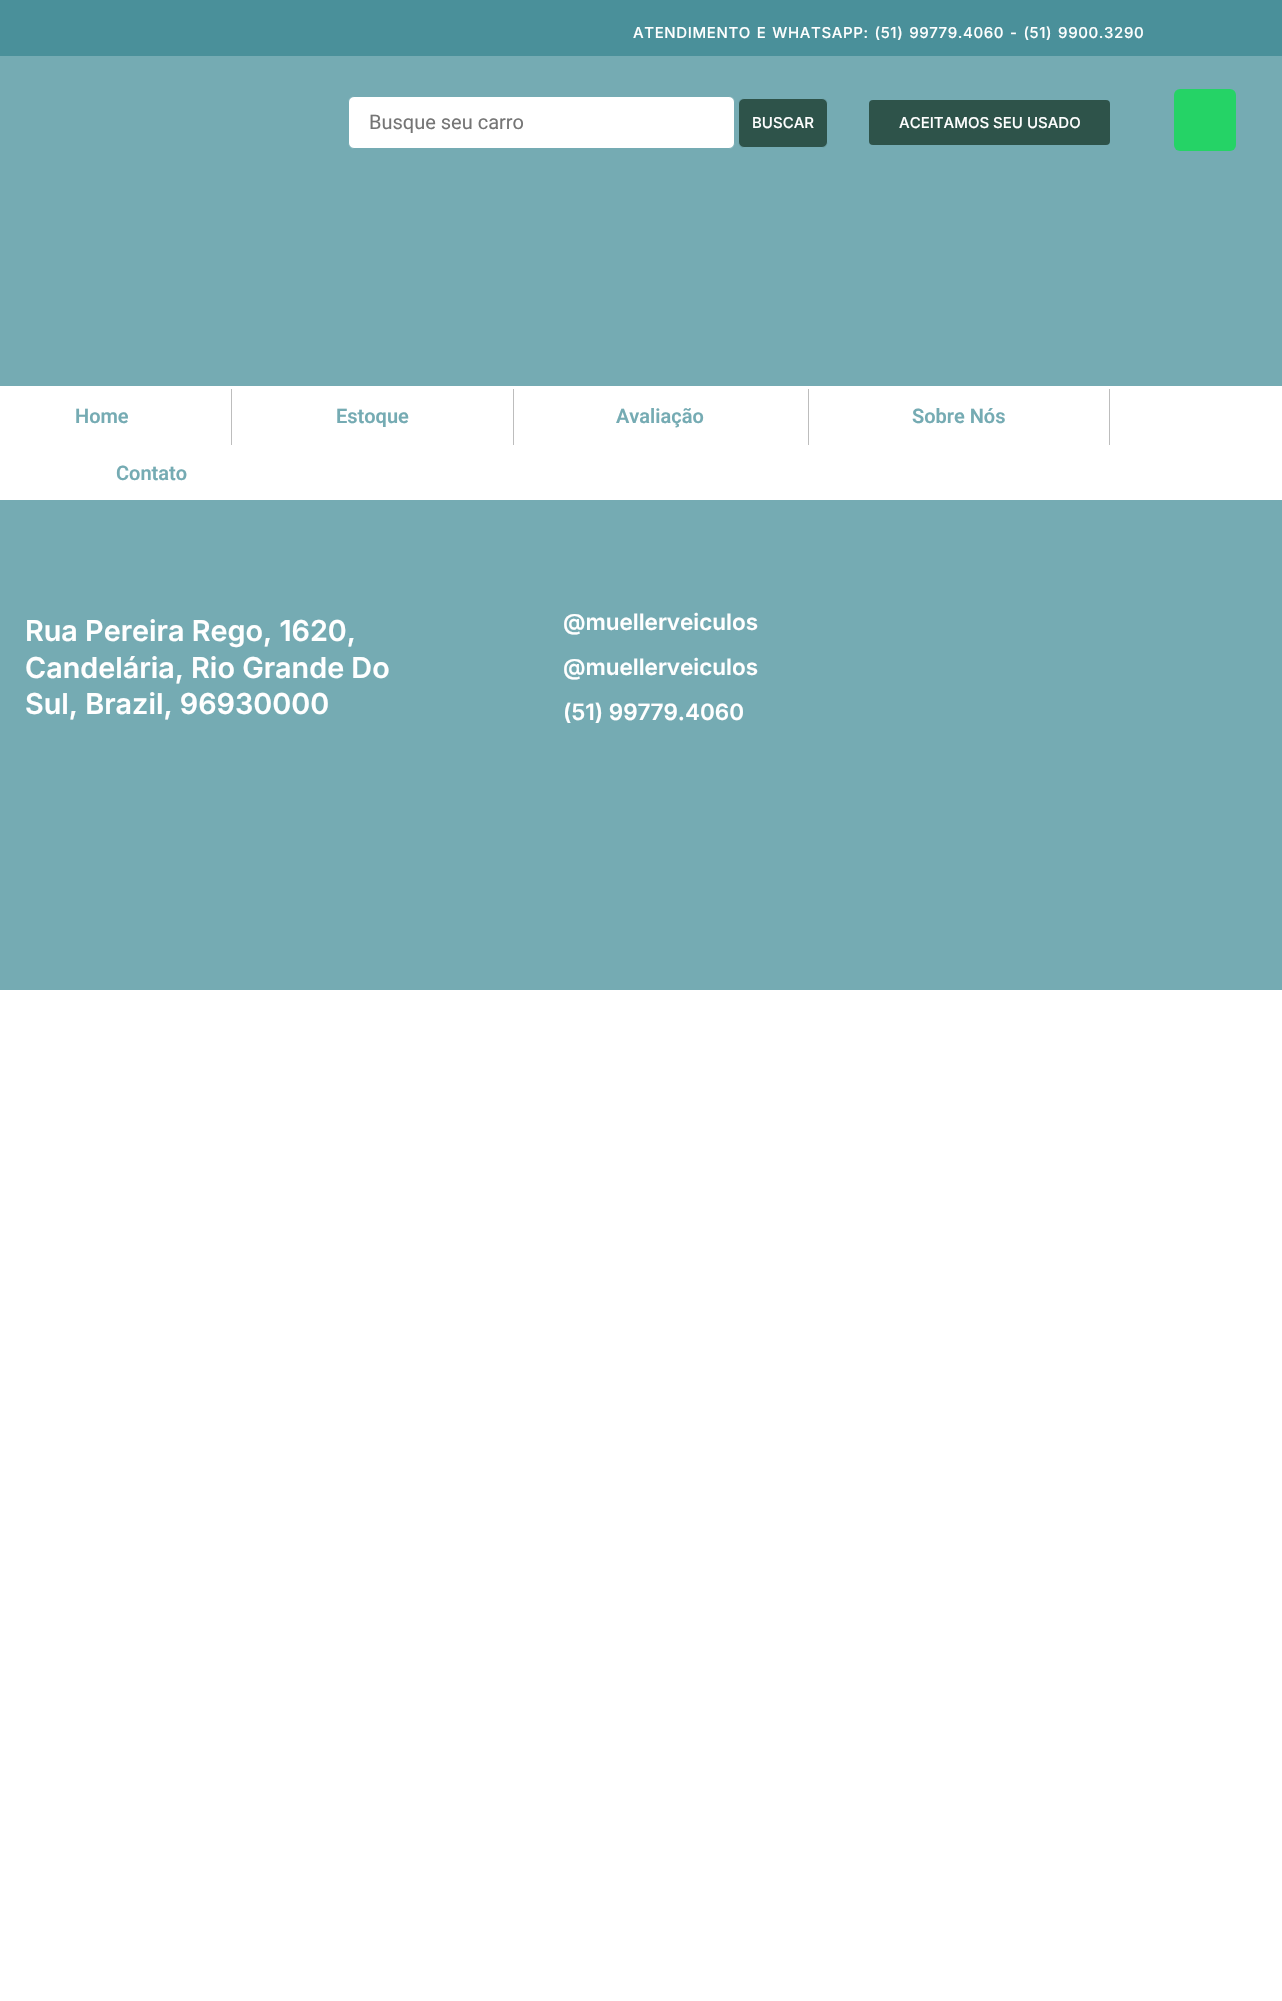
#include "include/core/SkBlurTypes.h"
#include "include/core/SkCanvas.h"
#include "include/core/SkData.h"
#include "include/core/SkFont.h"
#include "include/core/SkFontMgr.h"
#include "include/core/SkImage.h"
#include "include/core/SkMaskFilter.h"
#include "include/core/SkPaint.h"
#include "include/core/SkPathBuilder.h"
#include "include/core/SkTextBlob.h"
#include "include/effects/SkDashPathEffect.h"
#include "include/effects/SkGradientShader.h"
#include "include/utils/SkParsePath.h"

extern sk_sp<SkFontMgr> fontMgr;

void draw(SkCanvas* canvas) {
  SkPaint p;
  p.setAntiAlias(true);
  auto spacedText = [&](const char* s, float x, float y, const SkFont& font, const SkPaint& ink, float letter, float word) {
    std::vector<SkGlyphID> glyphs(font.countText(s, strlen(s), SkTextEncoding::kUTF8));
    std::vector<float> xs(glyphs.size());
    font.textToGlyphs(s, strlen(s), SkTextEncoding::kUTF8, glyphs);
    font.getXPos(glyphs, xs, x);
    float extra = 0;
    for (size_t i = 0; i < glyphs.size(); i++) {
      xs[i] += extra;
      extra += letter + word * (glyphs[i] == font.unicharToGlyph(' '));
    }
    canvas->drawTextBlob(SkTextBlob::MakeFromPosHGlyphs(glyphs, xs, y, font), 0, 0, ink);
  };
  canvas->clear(SK_ColorWHITE);
  p.setColor(SkColorSetRGB(74, 144, 154));
  canvas->drawRect(SkRect::MakeLTRB(0, 0, 1282, 56), p);
  p.setColor(SkColorSetRGB(117, 171, 179));
  canvas->drawRect(SkRect::MakeLTRB(0, 56, 1282, 386), p);
  p.setColor(SK_ColorWHITE);
  canvas->drawRoundRect(SkRect::MakeLTRB(348.5f, 96.5f, 734.5f, 148.5f), 5.5f, 5.5f, p);
  p.setStyle(SkPaint::kStroke_Style);
  p.setStrokeWidth(1);
  p.setColor(SkColorSetRGB(117, 171, 179));
  canvas->drawRoundRect(SkRect::MakeLTRB(348.5f, 96.5f, 734.5f, 148.5f), 5.5f, 5.5f, p);
  p.setStyle(SkPaint::kFill_Style);
  p.setColor(SkColorSetRGB(46, 83, 74));
  canvas->drawRoundRect(SkRect::MakeLTRB(738.5f, 98.5f, 827.5f, 147.5f), 5.5f, 5.5f, p);
  p.setStyle(SkPaint::kStroke_Style);
  p.setColor(SkColorSetRGB(117, 171, 179));
  canvas->drawRoundRect(SkRect::MakeLTRB(738.5f, 98.5f, 827.5f, 147.5f), 5.5f, 5.5f, p);
  p.setStyle(SkPaint::kFill_Style);
  p.setColor(SkColorSetRGB(46, 83, 74));
  canvas->drawRoundRect(SkRect::MakeLTRB(869, 100, 1110, 145), 4, 4, p);
  p.setColor(SkColorSetRGB(37, 211, 102));
  canvas->drawRoundRect(SkRect::MakeLTRB(1174, 89, 1236, 151), 6, 6, p);
  p.setColor(SkColorSetRGB(189, 189, 189));
  canvas->drawRect(SkRect::MakeLTRB(231, 389, 232, 445), p);
  canvas->drawRect(SkRect::MakeLTRB(513, 389, 514, 445), p);
  canvas->drawRect(SkRect::MakeLTRB(808, 389, 809, 445), p);
  canvas->drawRect(SkRect::MakeLTRB(1109, 389, 1110, 445), p);
  p.setColor(SkColorSetRGB(117, 171, 179));
  canvas->drawRect(SkRect::MakeLTRB(0, 500, 1282, 990), p);
  SkFont font1(fontMgr->matchFamilyStyle("Inter", SkFontStyle(500, SkFontStyle::kNormal_Width, SkFontStyle::kUpright_Slant)), 15);
  font1.setSubpixel(true);
  p.setColor(SK_ColorWHITE);
  spacedText("ATENDIMENTO E WHATSAPP: (51) 99779.4060 - (51) 9900.3290", 633, 38, font1, p, 0.62f, 1.25f);
  SkFont font2(fontMgr->matchFamilyStyle("Roboto", SkFontStyle::Normal()), 20);
  font2.setSubpixel(true);
  p.setColor(SkColorSetRGB(117, 117, 117));
  canvas->drawString("Busque seu carro", 369, 129, font2, p);
  p.setColor(SK_ColorWHITE);
  canvas->drawString("BUSCAR", 752, 128, font1, p);
  canvas->drawString("ACEITAMOS SEU USADO", 899, 128, font1, p);
  SkFont font3(fontMgr->matchFamilyStyle("Roboto", SkFontStyle(600, SkFontStyle::kNormal_Width, SkFontStyle::kUpright_Slant)), 20);
  font3.setSubpixel(true);
  p.setColor(SkColorSetRGB(117, 171, 179));
  canvas->drawString("Home", 75, 423, font3, p);
  canvas->drawString("Estoque", 336, 423, font3, p);
  canvas->drawString("Avaliação", 616, 423, font3, p);
  canvas->drawString("Sobre Nós", 912, 423, font3, p);
  canvas->drawString("Contato", 116, 480, font3, p);
  SkFont font4(fontMgr->matchFamilyStyle("Inter", SkFontStyle(600, SkFontStyle::kNormal_Width, SkFontStyle::kUpright_Slant)), 28.75f);
  font4.setSubpixel(true);
  p.setColor(SK_ColorWHITE);
  canvas->drawString("Rua Pereira Rego, 1620,", 25, 641, font4, p);
  canvas->drawString("Candelária, Rio Grande Do", 25, 678, font4, p);
  canvas->drawString("Sul, Brazil, 96930000", 25, 714, font4, p);
  SkFont font5(fontMgr->matchFamilyStyle("Inter", SkFontStyle(600, SkFontStyle::kNormal_Width, SkFontStyle::kUpright_Slant)), 22.5f);
  font5.setSubpixel(true);
  canvas->drawString("@muellerveiculos", 563, 630, font5, p);
  canvas->drawString("@muellerveiculos", 563, 675, font5, p);
  canvas->drawString("(51) 99779.4060", 563, 720, font5, p);
}
